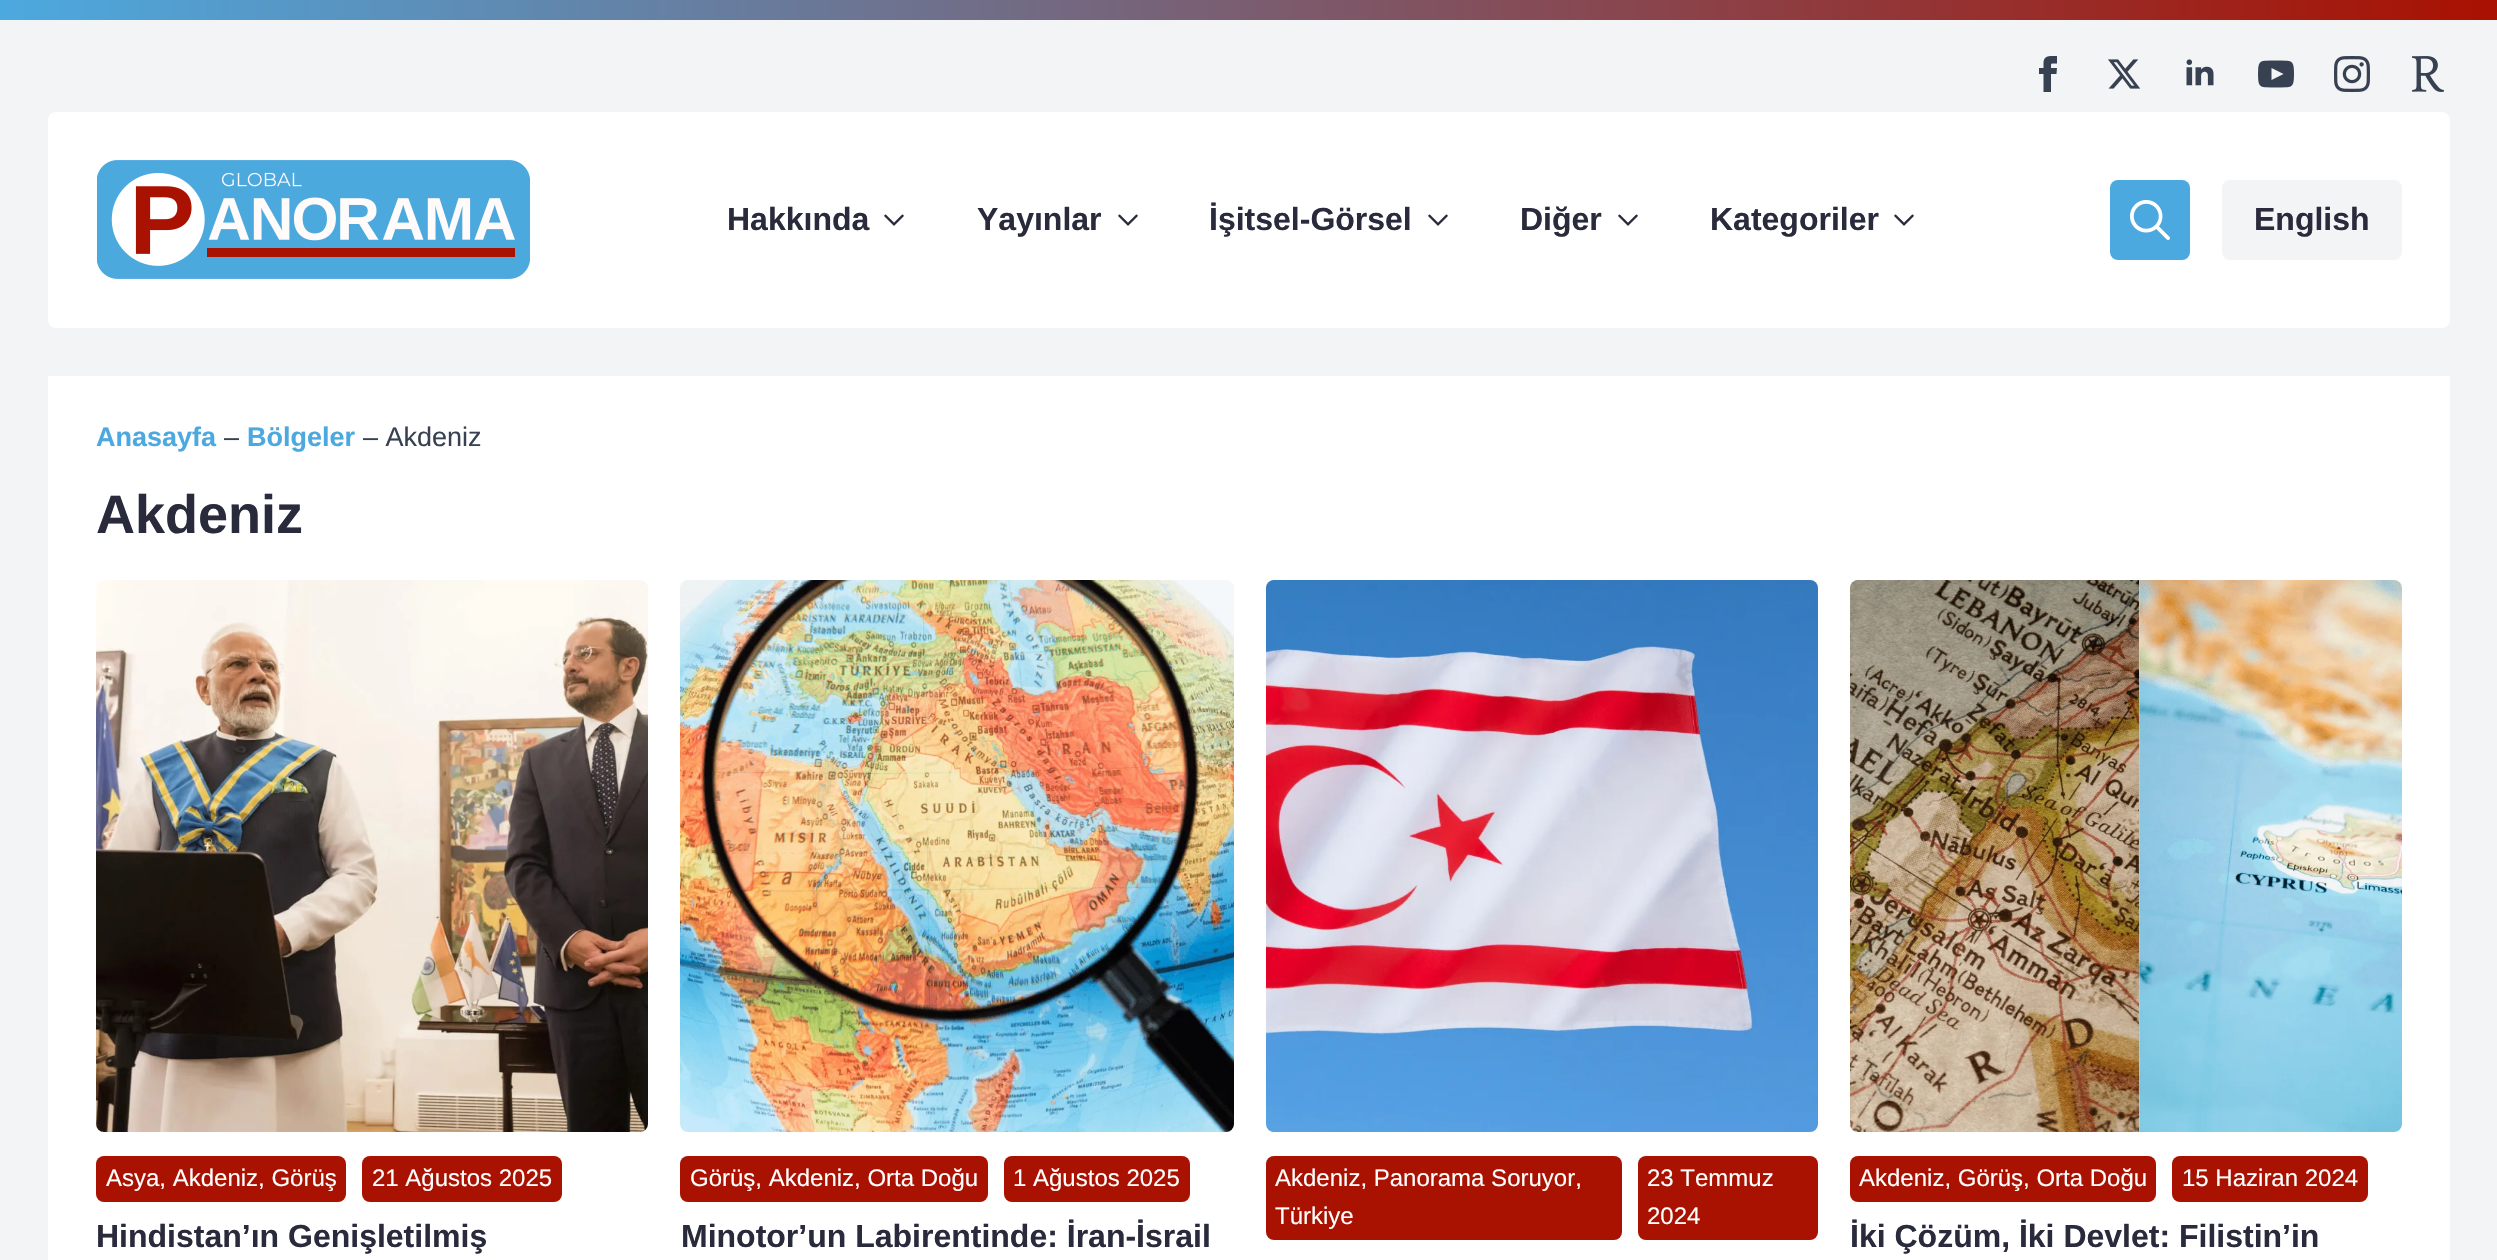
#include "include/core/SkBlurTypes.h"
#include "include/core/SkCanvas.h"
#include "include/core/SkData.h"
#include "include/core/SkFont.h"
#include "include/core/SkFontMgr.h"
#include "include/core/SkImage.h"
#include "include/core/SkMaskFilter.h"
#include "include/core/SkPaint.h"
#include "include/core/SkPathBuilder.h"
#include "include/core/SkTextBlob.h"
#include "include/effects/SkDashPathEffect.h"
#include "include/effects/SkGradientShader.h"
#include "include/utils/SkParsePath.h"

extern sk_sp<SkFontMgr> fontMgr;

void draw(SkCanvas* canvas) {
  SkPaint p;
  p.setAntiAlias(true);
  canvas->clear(SkColorSetRGB(243, 244, 246));
  {
    const SkColor colors[] = {SkColorSetRGB(76, 169, 223), SkColorSetRGB(169, 17, 1)};
    const float stops[] = {0, 1};
    const SkPoint ends[] = {{0, 10}, {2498, 10}};
    p.setShader(SkGradientShader::MakeLinear(ends, colors, stops, 2, SkTileMode::kClamp));
    p.setAlpha(255);
  }
  canvas->drawRect(SkRect::MakeLTRB(0, 0, 2497, 20), p);
  canvas->drawImageRect(SkImages::DeferredFromEncodedData(SkData::MakeFromFileName("images/1.png")), SkRect::MakeLTRB(2039, 56, 2057, 92), SkSamplingOptions());
  canvas->drawImageRect(SkImages::DeferredFromEncodedData(SkData::MakeFromFileName("images/2.png")), SkRect::MakeLTRB(2108, 59, 2141, 89), SkSamplingOptions());
  canvas->drawImageRect(SkImages::DeferredFromEncodedData(SkData::MakeFromFileName("images/3.png")), SkRect::MakeLTRB(2186, 59, 2214, 86), SkSamplingOptions());
  canvas->drawImageRect(SkImages::DeferredFromEncodedData(SkData::MakeFromFileName("images/4.png")), SkRect::MakeLTRB(2258, 60, 2294, 88), SkSamplingOptions());
  canvas->drawImageRect(SkImages::DeferredFromEncodedData(SkData::MakeFromFileName("images/5.png")), SkRect::MakeLTRB(2334, 56, 2370, 92), SkSamplingOptions());
  canvas->drawImageRect(SkImages::DeferredFromEncodedData(SkData::MakeFromFileName("images/6.png")), SkRect::MakeLTRB(2412, 56, 2444, 92), SkSamplingOptions());
  p.setShader(nullptr);
  p.setColor(SK_ColorWHITE);
  canvas->drawRoundRect(SkRect::MakeLTRB(48, 112, 2450, 328), 8, 8, p);
  canvas->drawImageRect(SkImages::DeferredFromEncodedData(SkData::MakeFromFileName("images/7.png")), SkRect::MakeLTRB(97, 160, 530, 279), SkSamplingOptions());
  canvas->drawImageRect(SkImages::DeferredFromEncodedData(SkData::MakeFromFileName("images/8.png")), SkRect::MakeLTRB(884, 214, 904, 226), SkSamplingOptions());
  canvas->drawImageRect(SkImages::DeferredFromEncodedData(SkData::MakeFromFileName("images/8.png")), SkRect::MakeLTRB(1118, 214, 1138, 226), SkSamplingOptions());
  canvas->drawImageRect(SkImages::DeferredFromEncodedData(SkData::MakeFromFileName("images/8.png")), SkRect::MakeLTRB(1428, 214, 1448, 226), SkSamplingOptions());
  canvas->drawImageRect(SkImages::DeferredFromEncodedData(SkData::MakeFromFileName("images/8.png")), SkRect::MakeLTRB(1618, 214, 1638, 226), SkSamplingOptions());
  canvas->drawImageRect(SkImages::DeferredFromEncodedData(SkData::MakeFromFileName("images/8.png")), SkRect::MakeLTRB(1894, 214, 1914, 226), SkSamplingOptions());
  p.setColor(SkColorSetRGB(76, 169, 223));
  canvas->drawRoundRect(SkRect::MakeLTRB(2110, 180, 2190, 260), 8, 8, p);
  canvas->drawImageRect(SkImages::DeferredFromEncodedData(SkData::MakeFromFileName("images/9.png")), SkRect::MakeLTRB(2130, 200, 2170, 240), SkSamplingOptions());
  p.setColor(SkColorSetRGB(243, 244, 246));
  canvas->drawRoundRect(SkRect::MakeLTRB(2222, 180, 2402, 260), 8, 8, p);
  p.setColor(SK_ColorWHITE);
  canvas->drawRect(SkRect::MakeLTRB(48, 376, 2450, 1260), p);
  canvas->drawImageRect(SkImages::DeferredFromEncodedData(SkData::MakeFromFileName("images/10.png")), SkRect::MakeLTRB(96, 580, 648, 1132), SkSamplingOptions());
  p.setColor(SkColorSetRGB(169, 17, 1));
  canvas->drawRoundRect(SkRect::MakeLTRB(96, 1156, 346, 1202), 8, 8, p);
  canvas->drawRoundRect(SkRect::MakeLTRB(362, 1156, 562, 1202), 8, 8, p);
  canvas->drawImageRect(SkImages::DeferredFromEncodedData(SkData::MakeFromFileName("images/11.png")), SkRect::MakeLTRB(680, 580, 1234, 1132), SkSamplingOptions());
  canvas->drawRoundRect(SkRect::MakeLTRB(680, 1156, 988, 1202), 8, 8, p);
  canvas->drawRoundRect(SkRect::MakeLTRB(1004, 1156, 1190, 1202), 8, 8, p);
  canvas->drawImageRect(SkImages::DeferredFromEncodedData(SkData::MakeFromFileName("images/12.png")), SkRect::MakeLTRB(1266, 580, 1818, 1132), SkSamplingOptions());
  canvas->drawRoundRect(SkRect::MakeLTRB(1266, 1156, 1622, 1240), 8, 8, p);
  canvas->drawRoundRect(SkRect::MakeLTRB(1638, 1156, 1818, 1240), 8, 8, p);
  canvas->drawImageRect(SkImages::DeferredFromEncodedData(SkData::MakeFromFileName("images/13.png")), SkRect::MakeLTRB(1850, 580, 2402, 1132), SkSamplingOptions());
  canvas->drawRoundRect(SkRect::MakeLTRB(1850, 1156, 2156, 1202), 8, 8, p);
  canvas->drawRoundRect(SkRect::MakeLTRB(2172, 1156, 2368, 1202), 8, 8, p);
  SkFont font1(fontMgr->matchFamilyStyle("Liberation Sans", SkFontStyle::Bold()), 32);
  font1.setSubpixel(true);
  p.setColor(SkColorSetRGB(41, 43, 60));
  canvas->drawString("Hakkında", 727, 230, font1, p);
  canvas->drawString("Yayınlar", 977, 230, font1, p);
  canvas->drawString("İşitsel-Görsel", 1209, 230, font1, p);
  canvas->drawString("Diğer", 1520, 230, font1, p);
  canvas->drawString("Kategoriler", 1710, 230, font1, p);
  canvas->drawString("English", 2254, 230, font1, p);
  SkFont font2(fontMgr->matchFamilyStyle("Liberation Sans", SkFontStyle::Bold()), 27);
  font2.setSubpixel(true);
  p.setColor(SkColorSetRGB(76, 169, 223));
  canvas->drawString("Anasayfa", 96, 446, font2, p);
  SkFont font3(fontMgr->matchFamilyStyle("Liberation Sans", SkFontStyle::Normal()), 27);
  font3.setSubpixel(true);
  p.setColor(SkColorSetRGB(55, 65, 81));
  canvas->drawString("–", 224, 446, font3, p);
  p.setColor(SkColorSetRGB(76, 169, 223));
  canvas->drawString("Bölgeler", 247, 446, font2, p);
  p.setColor(SkColorSetRGB(55, 65, 81));
  canvas->drawString("– Akdeniz", 363, 446, font3, p);
  SkFont font4(fontMgr->matchFamilyStyle("Liberation Sans", SkFontStyle::Bold()), 54);
  font4.setSubpixel(true);
  p.setColor(SkColorSetRGB(41, 43, 60));
  canvas->drawString("Akdeniz", 96, 533, font4, p);
  SkFont font5(fontMgr->matchFamilyStyle("Liberation Sans", SkFontStyle::Normal()), 24);
  font5.setSubpixel(true);
  p.setColor(SK_ColorWHITE);
  canvas->drawString("Asya, Akdeniz, Görüş", 106, 1186, font5, p);
  canvas->drawString("21 Ağustos 2025", 372, 1186, font5, p);
  p.setColor(SkColorSetRGB(41, 43, 60));
  canvas->drawString("Hindistan’ın Genişletilmiş", 96, 1247, font1, p);
  p.setColor(SK_ColorWHITE);
  canvas->drawString("Görüş, Akdeniz, Orta Doğu", 690, 1186, font5, p);
  canvas->drawString("1 Ağustos 2025", 1013, 1186, font5, p);
  p.setColor(SkColorSetRGB(41, 43, 60));
  canvas->drawString("Minotor’un Labirentinde: İran-İsrail", 681, 1247, font1, p);
  p.setColor(SK_ColorWHITE);
  canvas->drawString("Akdeniz, Panorama Soruyor,", 1275, 1186, font5, p);
  canvas->drawString("Türkiye", 1275, 1224, font5, p);
  canvas->drawString("23 Temmuz", 1647, 1186, font5, p);
  canvas->drawString("2024", 1647, 1224, font5, p);
  canvas->drawString("Akdeniz, Görüş, Orta Doğu", 1859, 1186, font5, p);
  canvas->drawString("15 Haziran 2024", 2182, 1186, font5, p);
  p.setColor(SkColorSetRGB(41, 43, 60));
  canvas->drawString("İki Çözüm, İki Devlet: Filistin’in", 1850, 1247, font1, p);
}
